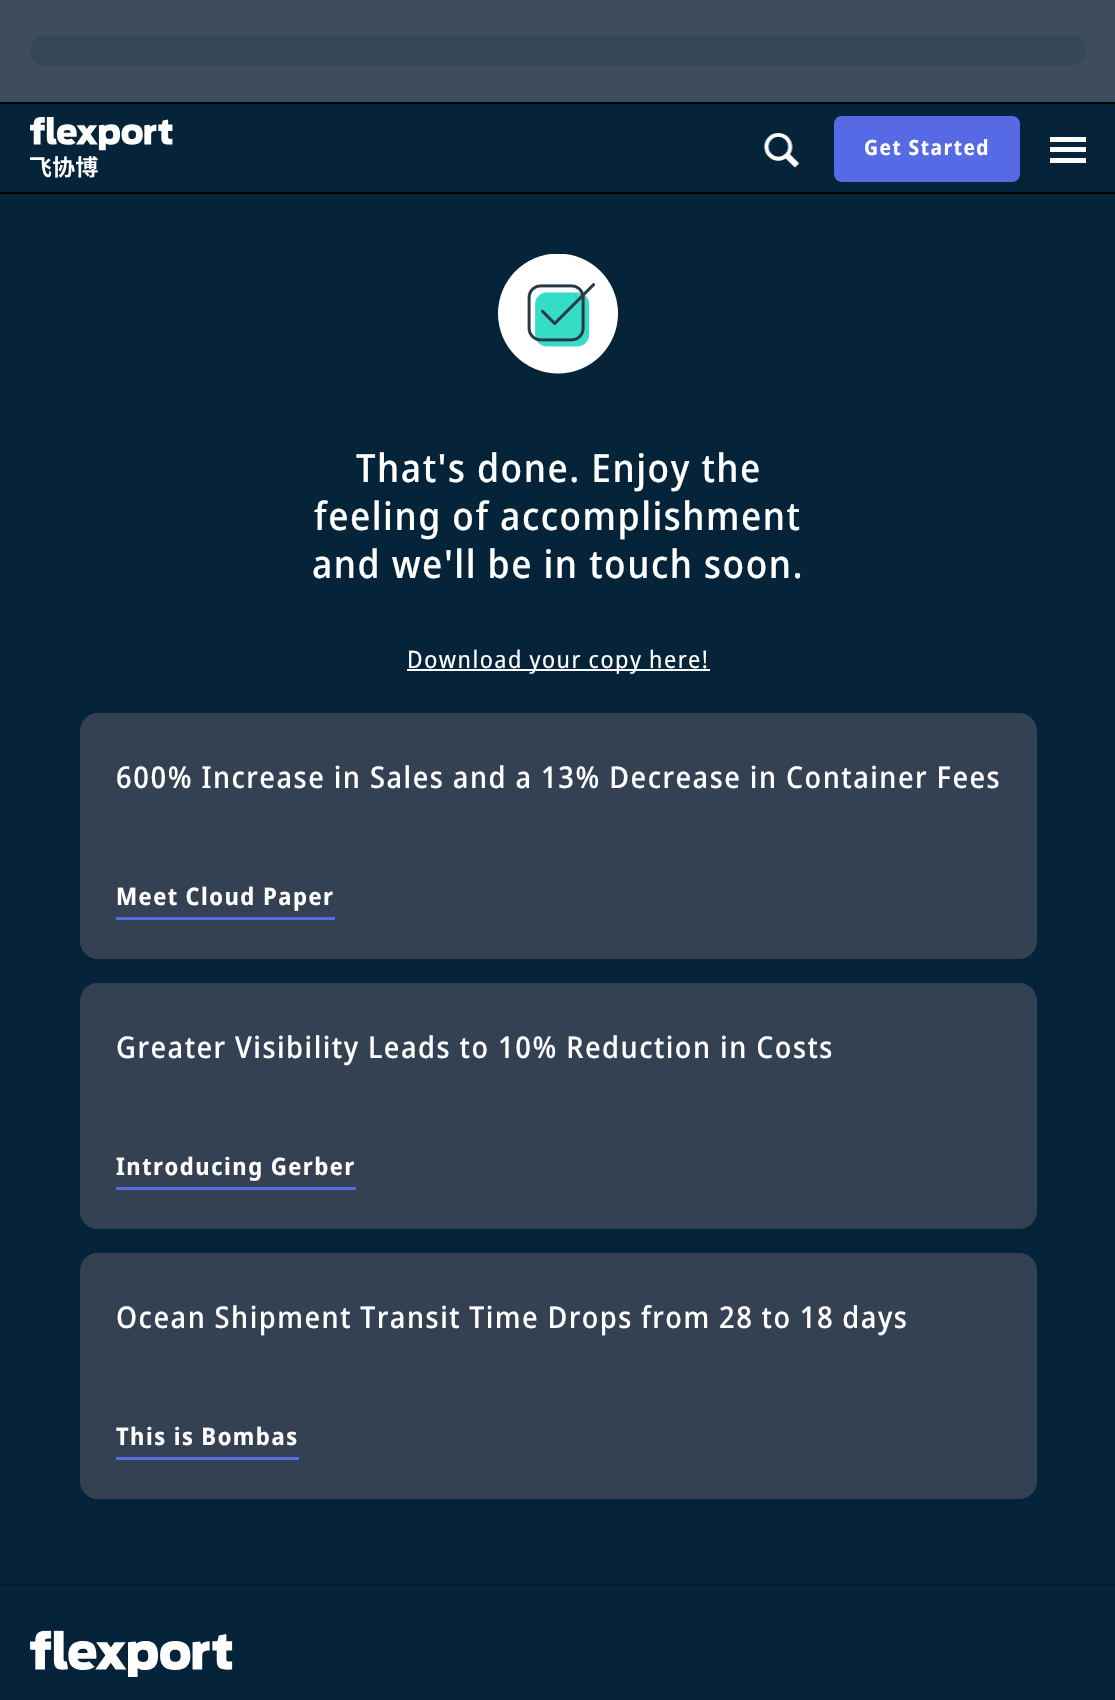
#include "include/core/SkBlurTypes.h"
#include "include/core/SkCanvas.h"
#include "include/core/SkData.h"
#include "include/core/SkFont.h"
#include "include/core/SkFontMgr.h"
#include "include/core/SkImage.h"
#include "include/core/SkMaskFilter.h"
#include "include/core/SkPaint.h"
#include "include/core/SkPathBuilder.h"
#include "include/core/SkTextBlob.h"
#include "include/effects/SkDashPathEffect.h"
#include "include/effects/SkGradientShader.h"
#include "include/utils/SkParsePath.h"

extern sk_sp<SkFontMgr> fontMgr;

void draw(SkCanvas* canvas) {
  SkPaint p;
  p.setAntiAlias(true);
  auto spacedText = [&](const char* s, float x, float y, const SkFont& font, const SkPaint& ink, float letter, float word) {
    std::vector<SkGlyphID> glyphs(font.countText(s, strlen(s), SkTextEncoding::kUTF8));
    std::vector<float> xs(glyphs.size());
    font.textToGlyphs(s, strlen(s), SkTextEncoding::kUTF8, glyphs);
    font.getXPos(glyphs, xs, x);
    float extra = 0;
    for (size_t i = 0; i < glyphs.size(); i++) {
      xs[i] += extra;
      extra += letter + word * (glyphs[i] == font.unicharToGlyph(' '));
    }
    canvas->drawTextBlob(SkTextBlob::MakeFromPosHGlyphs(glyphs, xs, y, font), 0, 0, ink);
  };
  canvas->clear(SkColorSetRGB(5, 36, 57));
  p.setColor(SkColorSetRGB(61, 77, 93));
  canvas->drawRect(SkRect::MakeLTRB(0, 0, 1115, 102), p);
  p.setColor(SK_ColorBLACK);
  canvas->drawRect(SkRect::MakeLTRB(0, 102, 1115, 104), p);
  p.setColor(SkColorSetRGB(53, 70, 87));
  canvas->drawRoundRect(SkRect::MakeLTRB(30, 36, 1086, 66), 15, 15, p);
  p.setColor(SK_ColorBLACK);
  canvas->drawRect(SkRect::MakeLTRB(0, 192, 1115, 194), p);
  canvas->drawImageRect(SkImages::DeferredFromEncodedData(SkData::MakeFromFileName("images/1.png")), SkRect::MakeLTRB(30, 117, 173, 178), SkSamplingOptions());
  canvas->drawImageRect(SkImages::DeferredFromEncodedData(SkData::MakeFromFileName("images/2.png")), SkRect::MakeLTRB(764, 133, 800, 168), SkSamplingOptions());
  p.setColor(SkColorSetRGB(86, 106, 229));
  canvas->drawRoundRect(SkRect::MakeLTRB(834, 116, 1020, 182), 8, 8, p);
  p.setColor(SK_ColorWHITE);
  canvas->drawRect(SkRect::MakeLTRB(1050, 147, 1086, 152), p);
  canvas->drawRect(SkRect::MakeLTRB(1050, 137, 1086, 142), p);
  canvas->drawRect(SkRect::MakeLTRB(1050, 158, 1086, 163), p);
  canvas->drawImageRect(SkImages::DeferredFromEncodedData(SkData::MakeFromFileName("images/3.png")), SkRect::MakeLTRB(498, 254, 618, 374), SkSamplingOptions());
  canvas->drawRect(SkRect::MakeLTRB(407, 669, 710, 671), p);
  p.setColor(SkColorSetRGB(52, 65, 83));
  canvas->drawRoundRect(SkRect::MakeLTRB(80, 713, 1037, 959), 18, 18, p);
  p.setColor(SkColorSetRGB(86, 106, 229));
  canvas->drawRect(SkRect::MakeLTRB(116, 917, 335, 920), p);
  p.setColor(SkColorSetRGB(52, 65, 83));
  canvas->drawRoundRect(SkRect::MakeLTRB(80, 983, 1037, 1229), 18, 18, p);
  p.setColor(SkColorSetRGB(86, 106, 229));
  canvas->drawRect(SkRect::MakeLTRB(116, 1187, 356, 1190), p);
  p.setColor(SkColorSetRGB(52, 65, 83));
  canvas->drawRoundRect(SkRect::MakeLTRB(80, 1253, 1037, 1499), 18, 18, p);
  p.setColor(SkColorSetRGB(86, 106, 229));
  canvas->drawRect(SkRect::MakeLTRB(116, 1457, 299, 1460), p);
  p.setColor(SkColorSetRGB(4, 29, 46));
  canvas->drawRect(SkRect::MakeLTRB(0, 1583, 1115, 1586), p);
  canvas->drawImageRect(SkImages::DeferredFromEncodedData(SkData::MakeFromFileName("images/4.png")), SkRect::MakeLTRB(30, 1630, 233, 1677), SkSamplingOptions());
  SkFont font1(fontMgr->matchFamilyStyle("Noto Sans", SkFontStyle::Bold()), 21);
  font1.setSubpixel(true);
  p.setColor(SK_ColorWHITE);
  spacedText("Get Started", 864, 155, font1, p, 1.5f, 0);
  SkFont font2(fontMgr->matchFamilyStyle("Noto Sans", SkFontStyle(500, SkFontStyle::kNormal_Width, SkFontStyle::kUpright_Slant)), 39);
  font2.setSubpixel(true);
  spacedText("That's done. Enjoy the", 356, 482, font2, p, 1.5f, 0);
  spacedText("feeling of accomplishment", 314, 530, font2, p, 1.5f, 0);
  spacedText("and we'll be in touch soon.", 312, 578, font2, p, 1.5f, 0);
  SkFont font3(fontMgr->matchFamilyStyle("Noto Sans", SkFontStyle::Normal()), 24);
  font3.setSubpixel(true);
  spacedText("Download your copy here!", 407, 668, font3, p, 1.5f, -0.5f);
  SkFont font4(fontMgr->matchFamilyStyle("Noto Sans", SkFontStyle(500, SkFontStyle::kNormal_Width, SkFontStyle::kUpright_Slant)), 30);
  font4.setSubpixel(true);
  spacedText("600% Increase in Sales and a 13% Decrease in Container Fees", 116, 788, font4, p, 1.5f, 0);
  SkFont font5(fontMgr->matchFamilyStyle("Noto Sans", SkFontStyle::Bold()), 24);
  font5.setSubpixel(true);
  spacedText("Meet Cloud Paper", 116, 905, font5, p, 1.5f, 0);
  spacedText("Greater Visibility Leads to 10% Reduction in Costs", 116, 1058, font4, p, 1.5f, 0);
  spacedText("Introducing Gerber", 116, 1175, font5, p, 1.5f, 0);
  spacedText("Ocean Shipment Transit Time Drops from 28 to 18 days", 116, 1328, font4, p, 1.5f, -0.25f);
  spacedText("This is Bombas", 116, 1445, font5, p, 1.5f, 0);
}
